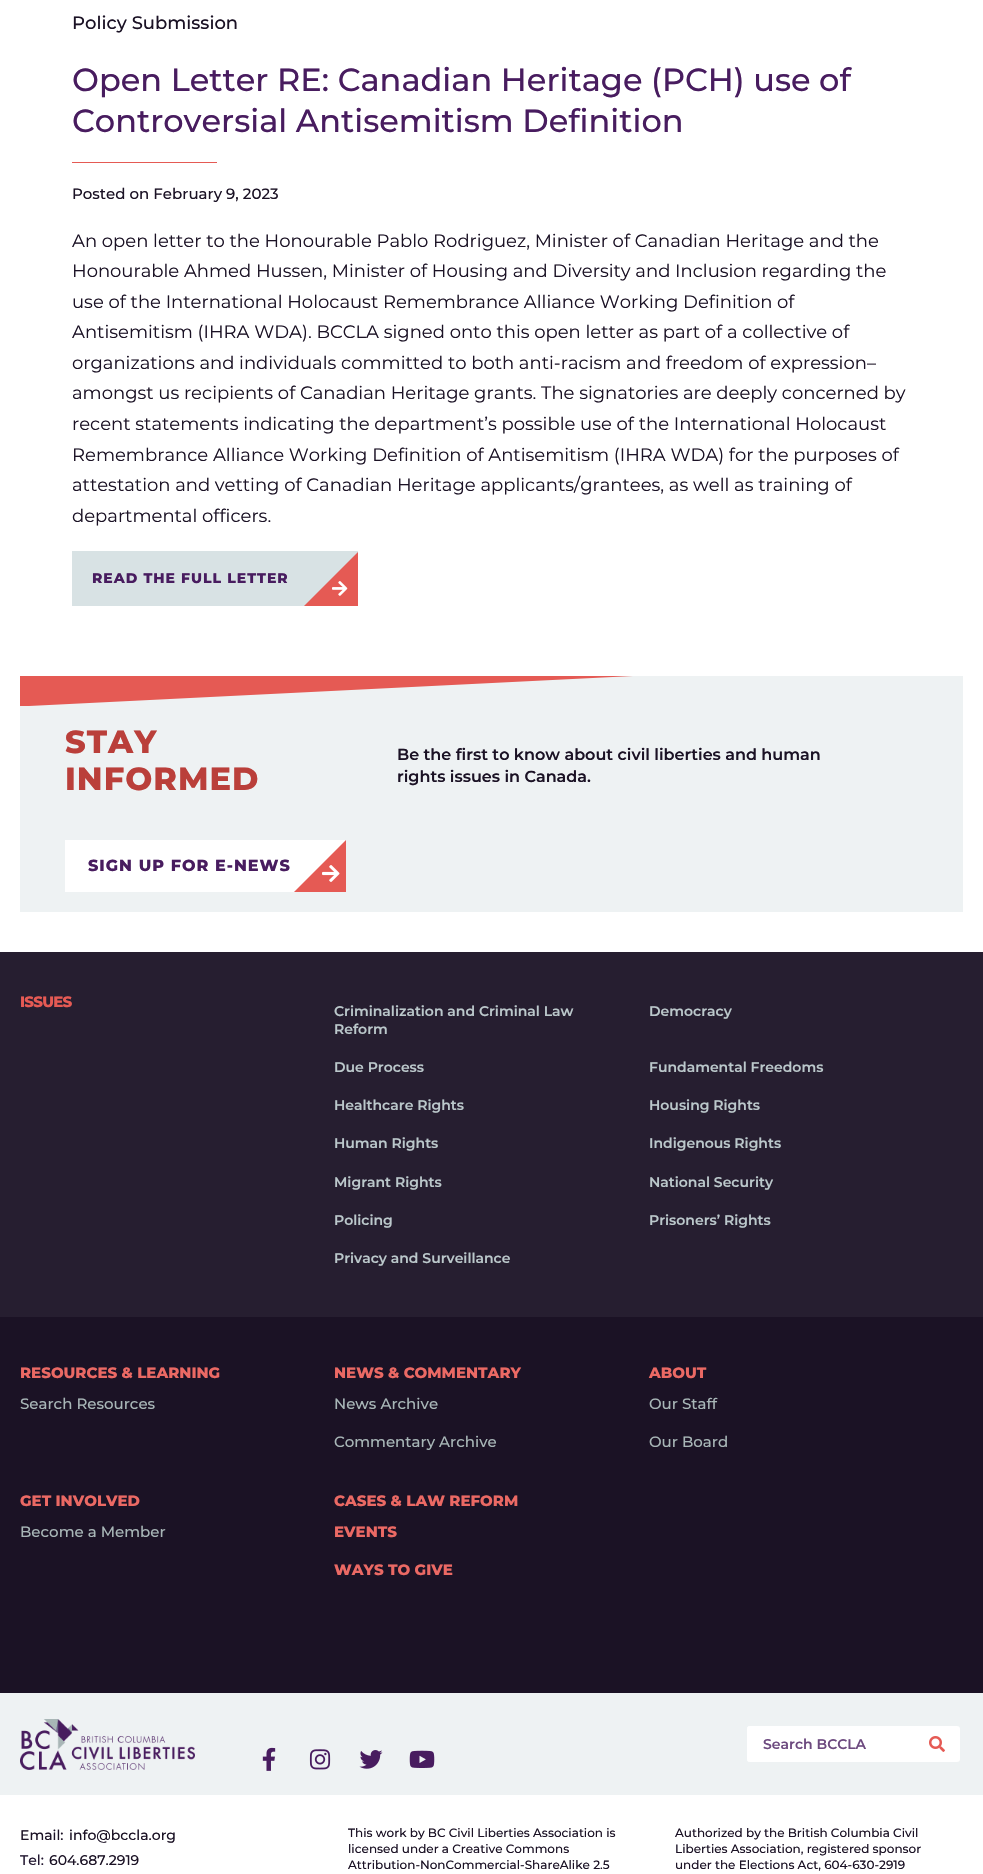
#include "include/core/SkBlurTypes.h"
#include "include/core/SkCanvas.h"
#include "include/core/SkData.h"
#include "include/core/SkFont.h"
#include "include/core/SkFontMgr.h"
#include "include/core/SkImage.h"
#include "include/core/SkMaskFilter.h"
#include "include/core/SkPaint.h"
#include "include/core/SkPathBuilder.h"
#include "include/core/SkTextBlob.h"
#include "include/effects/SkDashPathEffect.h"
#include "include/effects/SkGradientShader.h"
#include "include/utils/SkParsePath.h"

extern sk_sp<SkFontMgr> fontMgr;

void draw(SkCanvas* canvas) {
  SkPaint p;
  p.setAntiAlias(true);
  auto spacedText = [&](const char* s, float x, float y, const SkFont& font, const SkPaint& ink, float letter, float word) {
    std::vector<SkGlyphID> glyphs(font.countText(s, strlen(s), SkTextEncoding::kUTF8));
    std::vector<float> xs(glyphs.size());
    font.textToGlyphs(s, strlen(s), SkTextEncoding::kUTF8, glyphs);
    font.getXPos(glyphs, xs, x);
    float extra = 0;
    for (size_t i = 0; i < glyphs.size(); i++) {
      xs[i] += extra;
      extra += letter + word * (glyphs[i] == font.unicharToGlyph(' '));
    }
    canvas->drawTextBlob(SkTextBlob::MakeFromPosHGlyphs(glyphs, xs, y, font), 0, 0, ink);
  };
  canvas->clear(SK_ColorWHITE);
  p.setColor(SkColorSetRGB(229, 90, 84));
  canvas->drawRect(SkRect::MakeLTRB(72, 162, 217, 163), p);
  p.setColor(SkColorSetRGB(216, 226, 228));
  canvas->drawRect(SkRect::MakeLTRB(72, 551, 358, 606), p);
  p.setColor(SkColorSetRGB(229, 90, 84));
  canvas->drawPath(SkPathBuilder().moveTo(358, 552).lineTo(358, 606).lineTo(304, 606).close().detach(), p);
  canvas->drawImageRect(SkImages::DeferredFromEncodedData(SkData::MakeFromFileName("images/1.png")), SkRect::MakeLTRB(332, 581, 348, 596), SkSamplingOptions());
  p.setColor(SkColorSetRGB(238, 242, 243));
  canvas->drawRect(SkRect::MakeLTRB(20, 676, 963, 912), p);
  p.setColor(SkColorSetRGB(229, 90, 84));
  canvas->drawPath(SkPathBuilder().moveTo(20, 676).lineTo(20, 706).lineTo(29, 706).lineTo(633, 676).close().detach(), p);
  p.setColor(SK_ColorWHITE);
  canvas->drawRect(SkRect::MakeLTRB(65, 840, 346, 892), p);
  p.setColor(SkColorSetRGB(229, 90, 84));
  canvas->drawPath(SkPathBuilder().moveTo(346, 840).lineTo(294, 892).lineTo(346, 892).close().detach(), p);
  canvas->drawImageRect(SkImages::DeferredFromEncodedData(SkData::MakeFromFileName("images/2.png")), SkRect::MakeLTRB(322, 865, 340, 882), SkSamplingOptions());
  p.setColor(SkColorSetRGB(38, 30, 48));
  canvas->drawRect(SkRect::MakeLTRB(0, 952, 983, 1317), p);
  p.setColor(SkColorSetRGB(27, 18, 37));
  canvas->drawRect(SkRect::MakeLTRB(0, 1317, 983, 1693), p);
  p.setColor(SkColorSetRGB(238, 242, 243));
  canvas->drawRect(SkRect::MakeLTRB(0, 1693, 983, 1795), p);
  canvas->drawImageRect(SkImages::DeferredFromEncodedData(SkData::MakeFromFileName("images/3.png")), SkRect::MakeLTRB(20, 1719, 195, 1770), SkSamplingOptions());
  p.setColor(SK_ColorWHITE);
  canvas->drawRoundRect(SkRect::MakeLTRB(747, 1726, 960, 1762), 3, 3, p);
  canvas->drawRoundRect(SkRect::MakeLTRB(747, 1726, 909, 1762), 3, 3, p);
  canvas->drawImageRect(SkImages::DeferredFromEncodedData(SkData::MakeFromFileName("images/4.png")), SkRect::MakeLTRB(929, 1736, 945, 1752), SkSamplingOptions());
  canvas->drawImageRect(SkImages::DeferredFromEncodedData(SkData::MakeFromFileName("images/5.png")), SkRect::MakeLTRB(262, 1747, 276, 1771), SkSamplingOptions());
  canvas->drawImageRect(SkImages::DeferredFromEncodedData(SkData::MakeFromFileName("images/6.png")), SkRect::MakeLTRB(309, 1749, 331, 1770), SkSamplingOptions());
  canvas->drawImageRect(SkImages::DeferredFromEncodedData(SkData::MakeFromFileName("images/7.png")), SkRect::MakeLTRB(359, 1750, 383, 1769), SkSamplingOptions());
  canvas->drawImageRect(SkImages::DeferredFromEncodedData(SkData::MakeFromFileName("images/8.png")), SkRect::MakeLTRB(409, 1750, 435, 1768), SkSamplingOptions());
  SkFont font1(fontMgr->matchFamilyStyle("Montserrat", SkFontStyle(500, SkFontStyle::kNormal_Width, SkFontStyle::kUpright_Slant)), 18);
  font1.setSubpixel(true);
  p.setColor(SkColorSetRGB(27, 18, 37));
  canvas->drawString("Policy Submission", 72, 29, font1, p);
  SkFont font2(fontMgr->matchFamilyStyle("Montserrat", SkFontStyle(500, SkFontStyle::kNormal_Width, SkFontStyle::kUpright_Slant)), 32);
  font2.setSubpixel(true);
  p.setColor(SkColorSetRGB(72, 28, 95));
  canvas->drawString("Open Letter RE: Canadian Heritage (PCH) use of", 72, 91, font2, p);
  canvas->drawString("Controversial Antisemitism Definition", 72, 132, font2, p);
  SkFont font3(fontMgr->matchFamilyStyle("Montserrat", SkFontStyle(500, SkFontStyle::kNormal_Width, SkFontStyle::kUpright_Slant)), 15);
  font3.setSubpixel(true);
  p.setColor(SkColorSetRGB(27, 18, 37));
  canvas->drawString("Posted on February 9, 2023", 72, 199, font3, p);
  SkFont font4(fontMgr->matchFamilyStyle("Montserrat", SkFontStyle::Normal()), 18);
  font4.setSubpixel(true);
  canvas->drawString("An open letter to the Honourable Pablo Rodriguez, Minister of Canadian Heritage and the", 72, 247, font4, p);
  canvas->drawString("Honourable Ahmed Hussen, Minister of Housing and Diversity and Inclusion regarding the", 72, 277, font4, p);
  canvas->drawString("use of the International Holocaust Remembrance Alliance Working Definition of", 72, 308, font4, p);
  canvas->drawString("Antisemitism (IHRA WDA). BCCLA signed onto this open letter as part of a collective of", 72, 338, font4, p);
  canvas->drawString("organizations and individuals committed to both anti-racism and freedom of expression–", 72, 369, font4, p);
  canvas->drawString("amongst us recipients of Canadian Heritage grants. The signatories are deeply concerned by", 72, 399, font4, p);
  canvas->drawString("recent statements indicating the department’s possible use of the International Holocaust", 72, 430, font4, p);
  canvas->drawString("Remembrance Alliance Working Definition of Antisemitism (IHRA WDA) for the purposes of", 72, 461, font4, p);
  canvas->drawString("attestation and vetting of Canadian Heritage applicants/grantees, as well as training of", 72, 491, font4, p);
  canvas->drawString("departmental officers.", 72, 522, font4, p);
  SkFont font5(fontMgr->matchFamilyStyle("Montserrat", SkFontStyle(800, SkFontStyle::kNormal_Width, SkFontStyle::kUpright_Slant)), 14);
  font5.setSubpixel(true);
  p.setColor(SkColorSetRGB(72, 28, 95));
  spacedText("READ THE FULL LETTER", 92, 583, font5, p, 1, 0);
  SkFont font6(fontMgr->matchFamilyStyle("Montserrat", SkFontStyle(800, SkFontStyle::kNormal_Width, SkFontStyle::kUpright_Slant)), 32);
  font6.setSubpixel(true);
  p.setColor(SkColorSetRGB(186, 63, 58));
  spacedText("STAY", 65, 753, font6, p, 1, 0);
  spacedText("INFORMED", 65, 790, font6, p, 1, 0);
  SkFont font7(fontMgr->matchFamilyStyle("Montserrat", SkFontStyle(600, SkFontStyle::kNormal_Width, SkFontStyle::kUpright_Slant)), 16);
  font7.setSubpixel(true);
  p.setColor(SkColorSetRGB(27, 18, 37));
  canvas->drawString("Be the first to know about civil liberties and human", 397, 760, font7, p);
  canvas->drawString("rights issues in Canada.", 397, 782, font7, p);
  SkFont font8(fontMgr->matchFamilyStyle("Montserrat", SkFontStyle(800, SkFontStyle::kNormal_Width, SkFontStyle::kUpright_Slant)), 16);
  font8.setSubpixel(true);
  p.setColor(SkColorSetRGB(72, 28, 95));
  spacedText("SIGN UP FOR E-NEWS", 88, 871, font8, p, 1, 0);
  SkFont font9(fontMgr->matchFamilyStyle("Montserrat", SkFontStyle(800, SkFontStyle::kNormal_Width, SkFontStyle::kUpright_Slant)), 15);
  font9.setSubpixel(true);
  p.setColor(SkColorSetRGB(229, 90, 84));
  spacedText("ISSUES", 20, 1007, font9, p, -0.75f, 0);
  SkFont font10(fontMgr->matchFamilyStyle("Montserrat", SkFontStyle(600, SkFontStyle::kNormal_Width, SkFontStyle::kUpright_Slant)), 14);
  font10.setSubpixel(true);
  p.setColor(SkColorSetRGB(187, 200, 203));
  canvas->drawString("Criminalization and Criminal Law", 334, 1016, font10, p);
  canvas->drawString("Reform", 334, 1034, font10, p);
  canvas->drawString("Democracy", 649, 1016, font10, p);
  canvas->drawString("Due Process", 334, 1072, font10, p);
  canvas->drawString("Fundamental Freedoms", 649, 1072, font10, p);
  canvas->drawString("Healthcare Rights", 334, 1110, font10, p);
  canvas->drawString("Housing Rights", 649, 1110, font10, p);
  canvas->drawString("Human Rights", 334, 1148, font10, p);
  canvas->drawString("Indigenous Rights", 649, 1148, font10, p);
  canvas->drawString("Migrant Rights", 334, 1187, font10, p);
  canvas->drawString("National Security", 649, 1187, font10, p);
  canvas->drawString("Policing", 334, 1225, font10, p);
  canvas->drawString("Prisoners’ Rights", 649, 1225, font10, p);
  canvas->drawString("Privacy and Surveillance", 334, 1263, font10, p);
  p.setColor(SkColorSetRGB(235, 105, 100));
  canvas->drawString("RESOURCES & LEARNING", 20, 1378, font9, p);
  p.setColor(SkColorSetRGB(168, 182, 183));
  canvas->drawString("Search Resources", 20, 1409, font3, p);
  p.setColor(SkColorSetRGB(235, 105, 100));
  canvas->drawString("NEWS & COMMENTARY", 334, 1378, font9, p);
  p.setColor(SkColorSetRGB(168, 182, 183));
  canvas->drawString("News Archive", 334, 1409, font3, p);
  canvas->drawString("Commentary Archive", 334, 1447, font3, p);
  p.setColor(SkColorSetRGB(235, 105, 100));
  canvas->drawString("ABOUT", 649, 1378, font9, p);
  p.setColor(SkColorSetRGB(168, 182, 183));
  canvas->drawString("Our Staff", 649, 1409, font3, p);
  canvas->drawString("Our Board", 649, 1447, font3, p);
  p.setColor(SkColorSetRGB(235, 105, 100));
  canvas->drawString("GET INVOLVED", 20, 1506, font9, p);
  p.setColor(SkColorSetRGB(168, 182, 183));
  canvas->drawString("Become a Member", 20, 1537, font3, p);
  p.setColor(SkColorSetRGB(235, 105, 100));
  canvas->drawString("CASES & LAW REFORM", 334, 1506, font9, p);
  canvas->drawString("EVENTS", 334, 1537, font9, p);
  canvas->drawString("WAYS TO GIVE", 334, 1575, font9, p);
  p.setColor(SkColorSetRGB(109, 74, 127));
  canvas->drawString("Search BCCLA", 763, 1749, font10, p);
  SkFont font11(fontMgr->matchFamilyStyle("Montserrat", SkFontStyle(500, SkFontStyle::kNormal_Width, SkFontStyle::kUpright_Slant)), 14);
  font11.setSubpixel(true);
  p.setColor(SkColorSetRGB(27, 18, 37));
  canvas->drawString("Email:", 20, 1840, font11, p);
  canvas->drawString("info@bccla.org", 69, 1840, font11, p);
  p.setColor(SkColorSetRGB(34, 23, 48));
  canvas->drawString("Tel:", 20, 1865, font11, p);
  p.setColor(SkColorSetRGB(27, 18, 37));
  canvas->drawString("604.687.2919", 49, 1865, font11, p);
  SkFont font12(fontMgr->matchFamilyStyle("Montserrat", SkFontStyle(500, SkFontStyle::kNormal_Width, SkFontStyle::kUpright_Slant)), 12);
  font12.setSubpixel(true);
  canvas->drawString("This work by BC Civil Liberties Association is", 348, 1837, font12, p);
  canvas->drawString("licensed under a Creative Commons", 348, 1853, font12, p);
  canvas->drawString("Attribution-NonCommercial-ShareAlike 2.5", 348, 1869, font12, p);
  canvas->drawString("Authorized by the British Columbia Civil", 675, 1837, font12, p);
  canvas->drawString("Liberties Association, registered sponsor", 675, 1853, font12, p);
  canvas->drawString("under the Elections Act, 604-630-2919", 675, 1869, font12, p);
}
